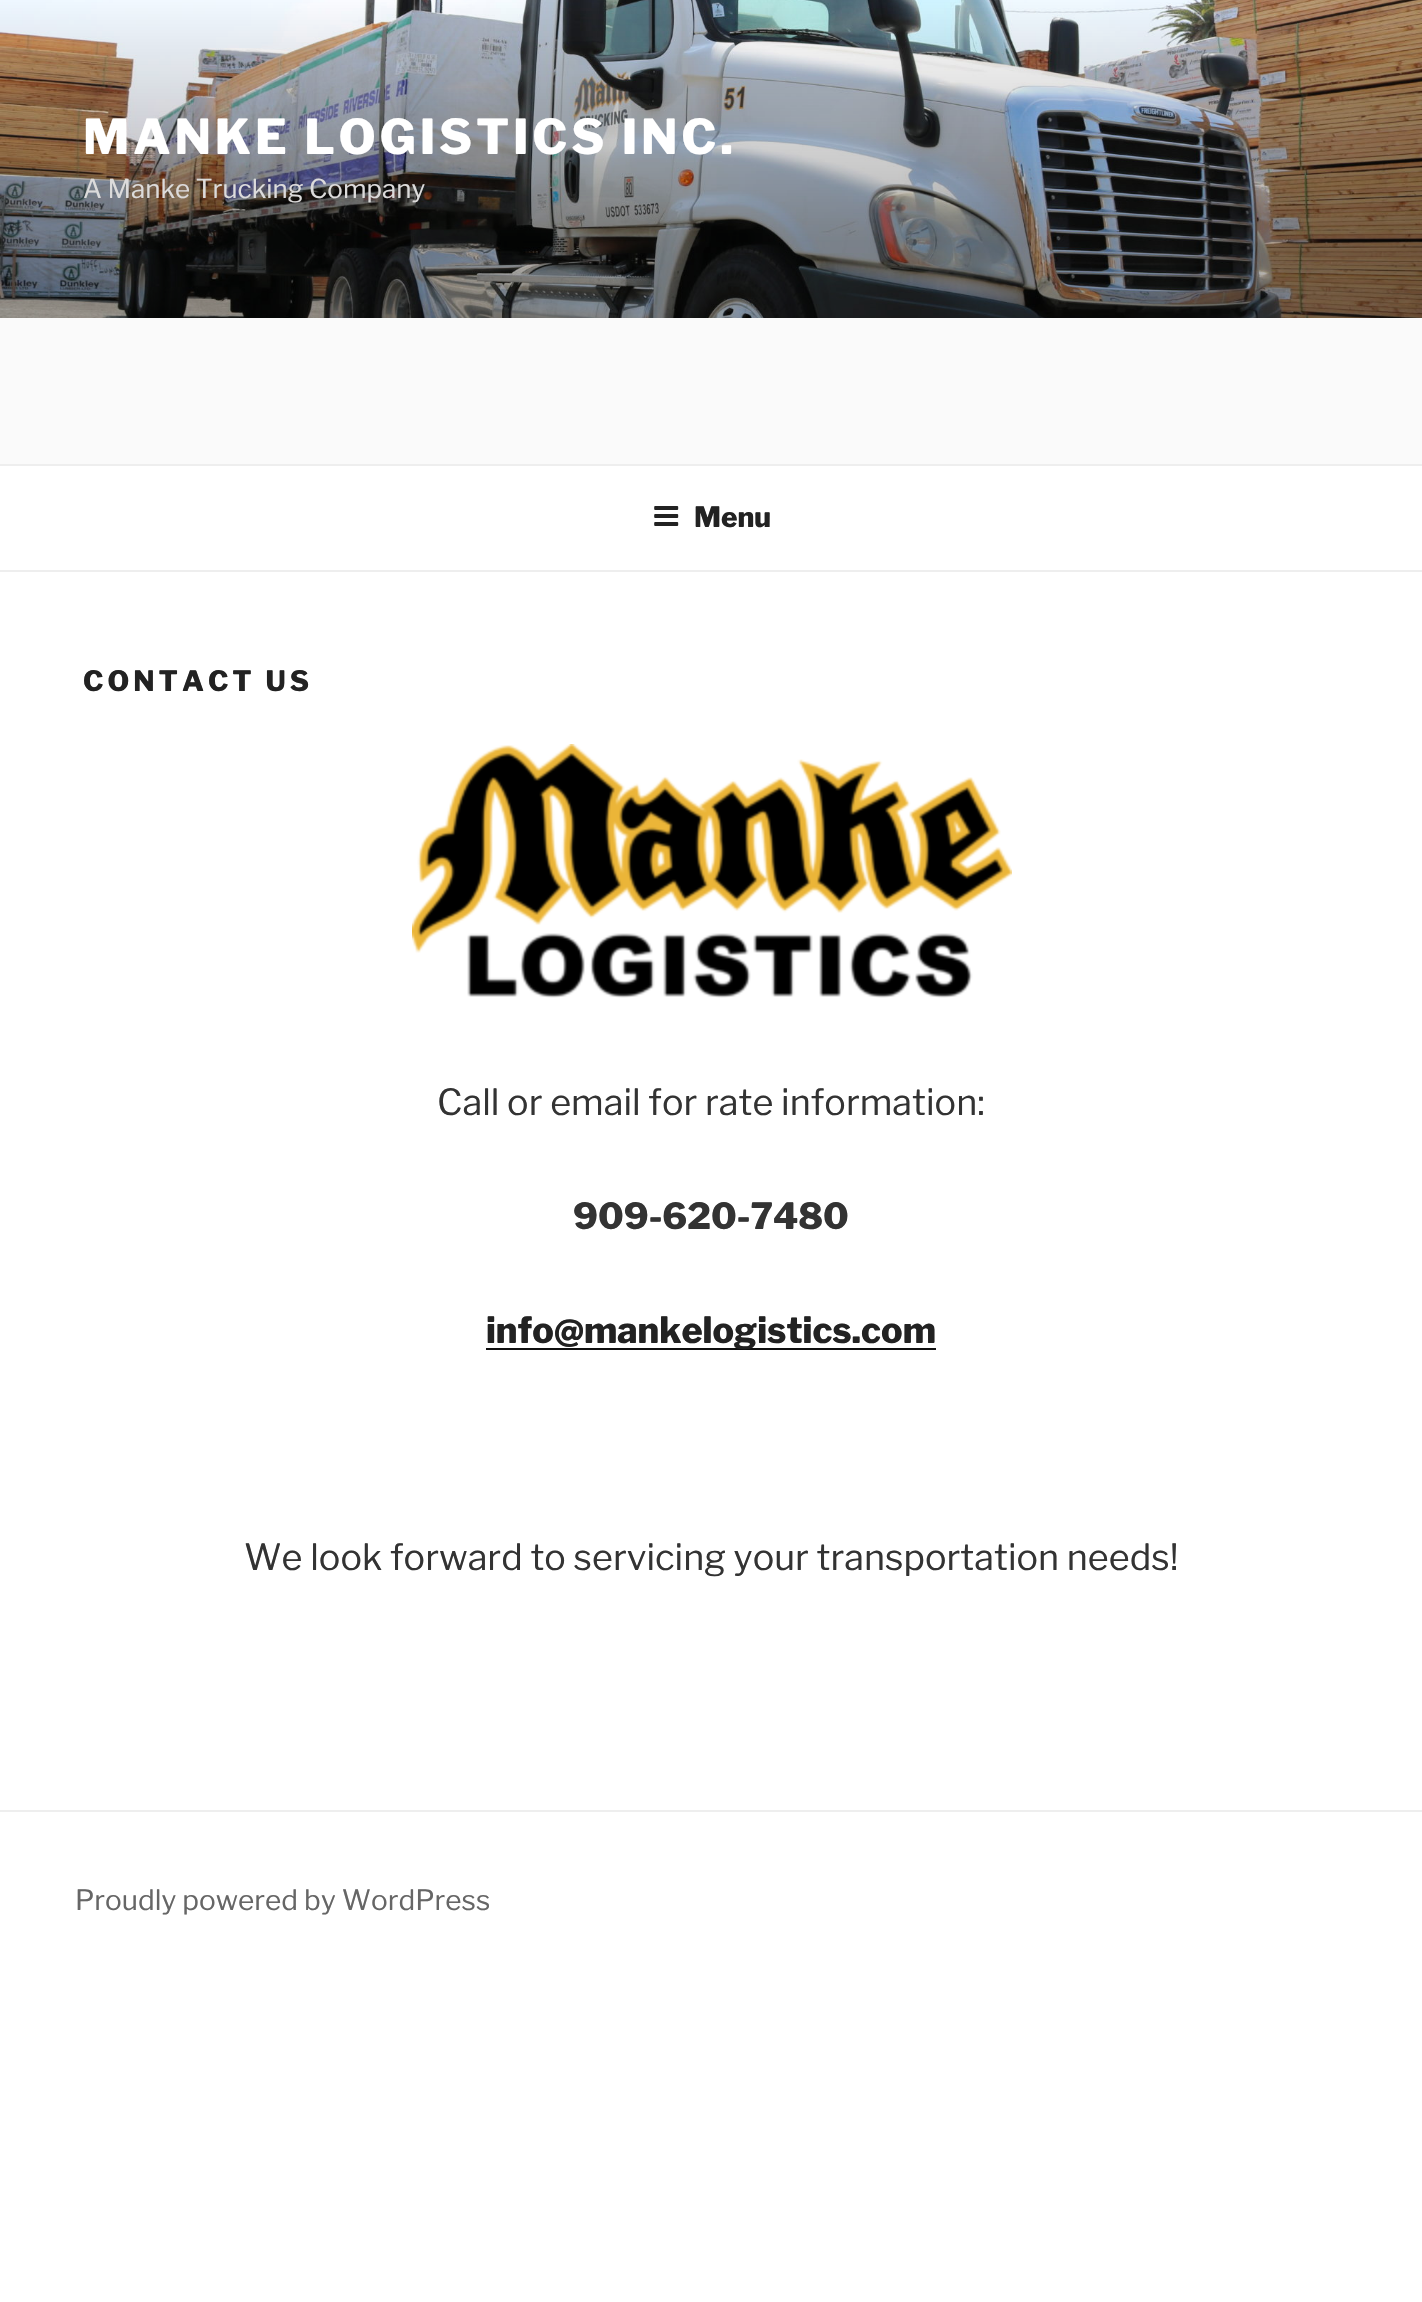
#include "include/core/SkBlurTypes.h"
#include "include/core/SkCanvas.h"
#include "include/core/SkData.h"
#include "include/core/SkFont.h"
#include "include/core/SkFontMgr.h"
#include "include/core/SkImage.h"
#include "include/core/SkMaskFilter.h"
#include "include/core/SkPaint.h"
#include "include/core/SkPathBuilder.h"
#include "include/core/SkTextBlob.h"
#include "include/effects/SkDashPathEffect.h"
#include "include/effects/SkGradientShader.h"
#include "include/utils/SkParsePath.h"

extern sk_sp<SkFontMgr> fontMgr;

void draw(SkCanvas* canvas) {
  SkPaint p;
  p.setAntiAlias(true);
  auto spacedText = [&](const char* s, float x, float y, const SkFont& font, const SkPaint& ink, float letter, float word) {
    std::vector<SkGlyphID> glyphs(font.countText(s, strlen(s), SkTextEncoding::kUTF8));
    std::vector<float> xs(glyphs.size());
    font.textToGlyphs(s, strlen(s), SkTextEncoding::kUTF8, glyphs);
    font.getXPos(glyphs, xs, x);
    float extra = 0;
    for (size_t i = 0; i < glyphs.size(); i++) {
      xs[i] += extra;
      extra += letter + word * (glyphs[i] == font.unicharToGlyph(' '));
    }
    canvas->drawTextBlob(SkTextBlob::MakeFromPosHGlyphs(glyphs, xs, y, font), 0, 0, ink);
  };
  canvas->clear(SK_ColorWHITE);
  p.setColor(SkColorSetRGB(250, 250, 250));
  canvas->drawRect(SkRect::MakeLTRB(0, 318, 1422, 464), p);
  canvas->drawImageRect(SkImages::DeferredFromEncodedData(SkData::MakeFromFileName("images/1.png")), SkRect::MakeLTRB(0, 0, 1422, 318), SkSamplingOptions());
  p.setColor(SkColorSetRGB(238, 238, 238));
  canvas->drawRect(SkRect::MakeLTRB(0, 464, 1422, 466), p);
  canvas->drawRect(SkRect::MakeLTRB(0, 570, 1422, 572), p);
  canvas->drawImageRect(SkImages::DeferredFromEncodedData(SkData::MakeFromFileName("images/2.png")), SkRect::MakeLTRB(654, 506, 679, 526), SkSamplingOptions());
  canvas->drawImageRect(SkImages::DeferredFromEncodedData(SkData::MakeFromFileName("images/3.png")), SkRect::MakeLTRB(412, 744, 1012, 998), SkSamplingOptions());
  p.setColor(SkColorSetRGB(15, 15, 15));
  canvas->drawRect(SkRect::MakeLTRB(486, 1348, 936, 1350), p);
  p.setColor(SkColorSetRGB(238, 238, 238));
  canvas->drawRect(SkRect::MakeLTRB(0, 1810, 1422, 1812), p);
  SkFont font1(fontMgr->matchFamilyStyle("Libre Franklin", SkFontStyle(100, SkFontStyle::kNormal_Width, SkFontStyle::kUpright_Slant)), 48);
  font1.setSubpixel(true);
  p.setColor(SK_ColorWHITE);
  spacedText("MANKE LOGISTICS INC.", 83, 154, font1, p, 3.8f, 0);
  SkFont font2(fontMgr->matchFamilyStyle("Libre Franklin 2", SkFontStyle(100, SkFontStyle::kNormal_Width, SkFontStyle::kUpright_Slant)), 26);
  font2.setSubpixel(true);
  p.setColor(SkColorSetRGB(220, 219, 219));
  canvas->drawString("A Manke Trucking Company", 83, 198, font2, p);
  SkFont font3(fontMgr->matchFamilyStyle("Libre Franklin", SkFontStyle(100, SkFontStyle::kNormal_Width, SkFontStyle::kUpright_Slant)), 28);
  font3.setSubpixel(true);
  p.setColor(SkColorSetRGB(34, 34, 34));
  canvas->drawString("Menu", 694, 527, font3, p);
  spacedText("CONTACT US", 83, 691, font3, p, 4, 0);
  SkFont font4(fontMgr->matchFamilyStyle("Libre Franklin 2", SkFontStyle(100, SkFontStyle::kNormal_Width, SkFontStyle::kUpright_Slant)), 36);
  font4.setSubpixel(true);
  p.setColor(SkColorSetRGB(51, 51, 51));
  canvas->drawString("Call or email for rate information:", 437, 1115, font4, p);
  SkFont font5(fontMgr->matchFamilyStyle("Libre Franklin", SkFontStyle(100, SkFontStyle::kNormal_Width, SkFontStyle::kUpright_Slant)), 36);
  font5.setSubpixel(true);
  canvas->drawString("909-620-7480", 573, 1229, font5, p);
  p.setColor(SkColorSetRGB(34, 34, 34));
  canvas->drawString("info@mankelogistics.com", 486, 1343, font5, p);
  p.setColor(SkColorSetRGB(51, 51, 51));
  canvas->drawString("We look forward to servicing your transportation needs!", 244, 1570, font4, p);
  SkFont font6(fontMgr->matchFamilyStyle("Libre Franklin 2", SkFontStyle(100, SkFontStyle::kNormal_Width, SkFontStyle::kUpright_Slant)), 28);
  font6.setSubpixel(true);
  p.setColor(SkColorSetRGB(102, 102, 102));
  canvas->drawString("Proudly powered by WordPress", 75, 1910, font6, p);
}
